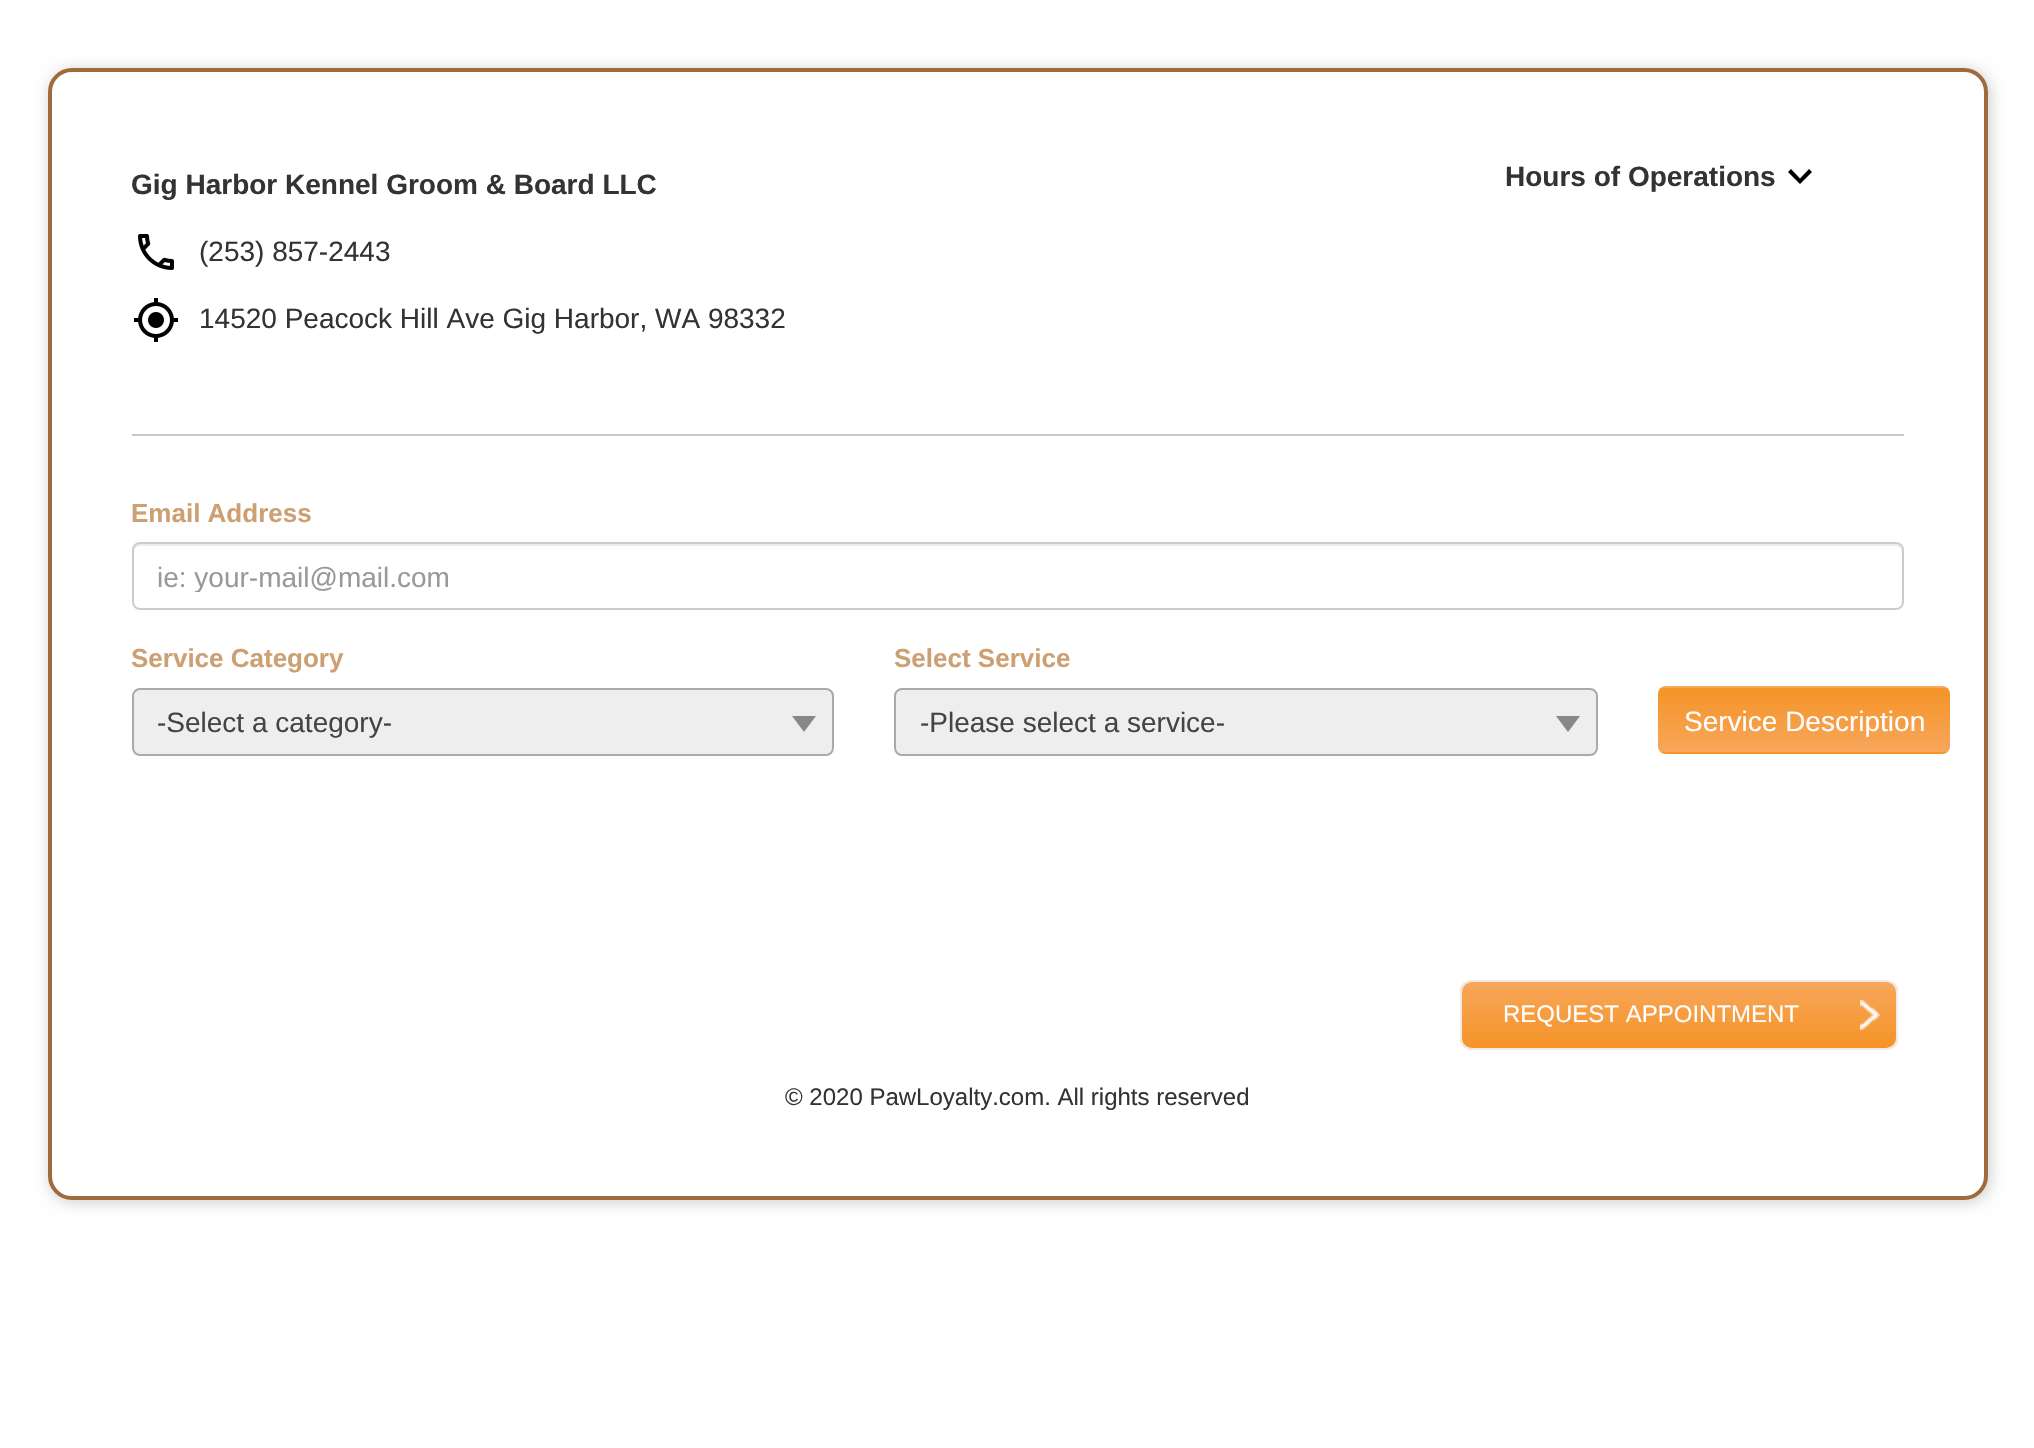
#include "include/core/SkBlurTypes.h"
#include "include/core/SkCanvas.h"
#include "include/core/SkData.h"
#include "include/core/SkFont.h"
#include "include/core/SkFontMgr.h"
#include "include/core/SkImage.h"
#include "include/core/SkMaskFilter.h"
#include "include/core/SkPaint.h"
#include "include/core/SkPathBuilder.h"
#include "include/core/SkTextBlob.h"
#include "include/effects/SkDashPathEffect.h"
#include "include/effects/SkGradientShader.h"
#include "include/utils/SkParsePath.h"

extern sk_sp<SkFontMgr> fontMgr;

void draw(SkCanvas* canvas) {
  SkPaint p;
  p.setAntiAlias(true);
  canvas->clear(SK_ColorWHITE);
  p.setColor(SkColorSetRGB(204, 204, 204));
  p.setMaskFilter(SkMaskFilter::MakeBlur(kNormal_SkBlurStyle, 8));
  canvas->drawRoundRect(SkRect::MakeLTRB(50, 70, 1990, 1202), 24, 24, p);
  p.setMaskFilter(nullptr);
  p.setColor(SK_ColorWHITE);
  canvas->drawRoundRect(SkRect::MakeLTRB(50, 70, 1986, 1198), 22, 22, p);
  p.setStyle(SkPaint::kStroke_Style);
  p.setStrokeWidth(4);
  p.setColor(SkColorSetRGB(159, 107, 60));
  canvas->drawRoundRect(SkRect::MakeLTRB(50, 70, 1986, 1198), 22, 22, p);
  canvas->drawImageRect(SkImages::DeferredFromEncodedData(SkData::MakeFromFileName("images/1.png")), SkRect::MakeLTRB(138, 234, 174, 270), SkSamplingOptions());
  canvas->drawImageRect(SkImages::DeferredFromEncodedData(SkData::MakeFromFileName("images/2.png")), SkRect::MakeLTRB(134, 298, 178, 342), SkSamplingOptions());
  p.setStyle(SkPaint::kFill_Style);
  p.setColor(SK_ColorBLACK);
  canvas->drawPath(SkPathBuilder().moveTo(1809, 169).lineTo(1800, 178.5f).lineTo(1791, 169).lineTo(1788, 172).lineTo(1800, 184).lineTo(1812, 172).close().detach(), p);
  p.setColor(SkColorSetRGB(199, 199, 199));
  canvas->drawRect(SkRect::MakeLTRB(132, 434, 1904, 436), p);
  p.setColor(SkColorSetRGB(236, 236, 236));
  canvas->drawPath(SkPathBuilder().moveTo(140, 546).lineTo(1896, 546).cubicTo(1899, 546, 1902, 549, 1902, 552).cubicTo(1902, 548, 1901, 544, 1896, 544).lineTo(140, 544).cubicTo(135, 544, 134, 548, 134, 552).cubicTo(134, 549, 137, 546, 140, 546).close().detach(), p);
  p.setStyle(SkPaint::kStroke_Style);
  p.setStrokeWidth(2);
  p.setColor(SkColorSetRGB(204, 204, 204));
  canvas->drawRoundRect(SkRect::MakeLTRB(133, 543, 1903, 609), 7, 7, p);
  p.setStyle(SkPaint::kFill_Style);
  p.setColor(SkColorSetRGB(238, 238, 238));
  canvas->drawRoundRect(SkRect::MakeLTRB(133, 689, 833, 755), 7, 7, p);
  p.setStyle(SkPaint::kStroke_Style);
  p.setColor(SkColorSetRGB(170, 170, 170));
  canvas->drawRoundRect(SkRect::MakeLTRB(133, 689, 833, 755), 7, 7, p);
  p.setStyle(SkPaint::kFill_Style);
  p.setColor(SkColorSetRGB(136, 136, 136));
  canvas->drawPath(SkPathBuilder().moveTo(792, 716).lineTo(816, 716).lineTo(804, 732).close().detach(), p);
  p.setColor(SkColorSetRGB(238, 238, 238));
  canvas->drawRoundRect(SkRect::MakeLTRB(895, 689, 1597, 755), 7, 7, p);
  p.setStyle(SkPaint::kStroke_Style);
  p.setColor(SkColorSetRGB(170, 170, 170));
  canvas->drawRoundRect(SkRect::MakeLTRB(895, 689, 1597, 755), 7, 7, p);
  p.setStyle(SkPaint::kFill_Style);
  p.setColor(SkColorSetRGB(136, 136, 136));
  canvas->drawPath(SkPathBuilder().moveTo(1556, 716).lineTo(1580, 716).lineTo(1568, 732).close().detach(), p);
  canvas->save();
  canvas->clipPath(SkPathBuilder().moveTo(1666, 686).lineTo(1942, 686).cubicTo(1946.5f, 686, 1950, 689.5f, 1950, 694).lineTo(1950, 746).cubicTo(1950, 750.5f, 1946.5f, 754, 1942, 754).lineTo(1666, 754).cubicTo(1661.5f, 754, 1658, 750.5f, 1658, 746).lineTo(1658, 694).cubicTo(1658, 689.5f, 1661.5f, 686, 1666, 686).close().detach(), true);
  {
    const SkColor colors[] = {SkColorSetRGB(247, 166, 91), SkColorSetRGB(245, 148, 39)};
    const float stops[] = {0, 1};
    const SkPoint ends[] = {{1804, 688}, {1804, 624}};
    p.setShader(SkGradientShader::MakeLinear(ends, colors, stops, 2, SkTileMode::kClamp));
    p.setAlpha(255);
  }
  canvas->drawRect(SkRect::MakeLTRB(1658, 686, 1950, 688), p);
  {
    const SkColor colors[] = {SkColorSetRGB(247, 166, 91), SkColorSetRGB(245, 148, 39)};
    const float stops[] = {0, 1};
    const SkPoint ends[] = {{1804, 752}, {1804, 688}};
    p.setShader(SkGradientShader::MakeLinear(ends, colors, stops, 2, SkTileMode::kClamp));
    p.setAlpha(255);
  }
  canvas->drawRect(SkRect::MakeLTRB(1658, 688, 1950, 752), p);
  {
    const SkColor colors[] = {SkColorSetRGB(247, 166, 91), SkColorSetRGB(245, 148, 39)};
    const float stops[] = {0, 1};
    const SkPoint ends[] = {{1804, 816}, {1804, 752}};
    p.setShader(SkGradientShader::MakeLinear(ends, colors, stops, 2, SkTileMode::kClamp));
    p.setAlpha(255);
  }
  canvas->drawRect(SkRect::MakeLTRB(1658, 752, 1950, 754), p);
  canvas->restore();
  canvas->save();
  canvas->clipPath(SkPathBuilder().moveTo(1472, 980).lineTo(1886, 980).cubicTo(1892.5f, 980, 1898, 985.5f, 1898, 992).lineTo(1898, 1038).cubicTo(1898, 1044.5f, 1892.5f, 1050, 1886, 1050).lineTo(1472, 1050).cubicTo(1465.5f, 1050, 1460, 1044.5f, 1460, 1038).lineTo(1460, 992).cubicTo(1460, 985.5f, 1465.5f, 980, 1472, 980).close().detach(), true);
  {
    const SkColor colors[] = {SkColorSetRGB(247, 166, 91), SkColorSetRGB(245, 148, 39)};
    const float stops[] = {0, 1};
    const SkPoint ends[] = {{1679, 982}, {1679, 1048}};
    p.setShader(SkGradientShader::MakeLinear(ends, colors, stops, 2, SkTileMode::kClamp));
    p.setAlpha(255);
  }
  canvas->drawRect(SkRect::MakeLTRB(1460, 982, 1898, 1048), p);
  canvas->restore();
  p.setStyle(SkPaint::kStroke_Style);
  p.setShader(nullptr);
  p.setColor(SkColorSetRGB(243, 234, 225));
  canvas->drawRoundRect(SkRect::MakeLTRB(1461, 981, 1897, 1049), 11, 11, p);
  canvas->drawImageRect(SkImages::DeferredFromEncodedData(SkData::MakeFromFileName("images/3.png")), SkRect::MakeLTRB(1860, 1000, 1880, 1030), SkSamplingOptions());
  SkFont font1(fontMgr->matchFamilyStyle("Liberation Sans", SkFontStyle::Bold()), 28);
  font1.setSubpixel(true);
  p.setStyle(SkPaint::kFill_Style);
  p.setColor(SkColorSetRGB(51, 51, 51));
  canvas->drawString("Gig Harbor Kennel Groom & Board LLC", 131, 194, font1, p);
  SkFont font2(fontMgr->matchFamilyStyle("Liberation Sans", SkFontStyle::Normal()), 28);
  font2.setSubpixel(true);
  canvas->drawString("(253) 857-2443", 199, 261, font2, p);
  canvas->drawString("14520 Peacock Hill Ave Gig Harbor, WA 98332", 199, 328, font2, p);
  canvas->drawString("Hours of Operations", 1505, 186, font1, p);
  SkFont font3(fontMgr->matchFamilyStyle("Liberation Sans", SkFontStyle::Bold()), 26);
  font3.setSubpixel(true);
  p.setColor(SkColorSetRGB(204, 160, 114));
  canvas->drawString("Email Address", 131, 522, font3, p);
  canvas->save();
  canvas->clipRect(SkRect::MakeLTRB(158, 560, 1878, 592));
  p.setColor(SkColorSetRGB(153, 153, 153));
  canvas->drawString("ie: your-mail@mail.com", 157, 587, font2, p);
  canvas->restore();
  p.setColor(SkColorSetRGB(204, 160, 114));
  canvas->drawString("Service Category", 131, 667, font3, p);
  p.setColor(SkColorSetRGB(68, 68, 68));
  canvas->drawString("-Select a category-", 157, 732, font2, p);
  p.setColor(SkColorSetRGB(204, 160, 114));
  canvas->drawString("Select Service", 894, 667, font3, p);
  p.setColor(SkColorSetRGB(68, 68, 68));
  canvas->drawString("-Please select a service-", 920, 732, font2, p);
  p.setColor(SK_ColorWHITE);
  canvas->drawString("Service Description", 1684, 731, font2, p);
  SkFont font4(fontMgr->matchFamilyStyle("Liberation Sans", SkFontStyle::Normal()), 24);
  font4.setSubpixel(true);
  canvas->drawString("REQUEST APPOINTMENT", 1503, 1022, font4, p);
  p.setColor(SkColorSetRGB(51, 51, 51));
  canvas->drawString("© 2020 PawLoyalty.com. All rights reserved", 785, 1105, font4, p);
}
